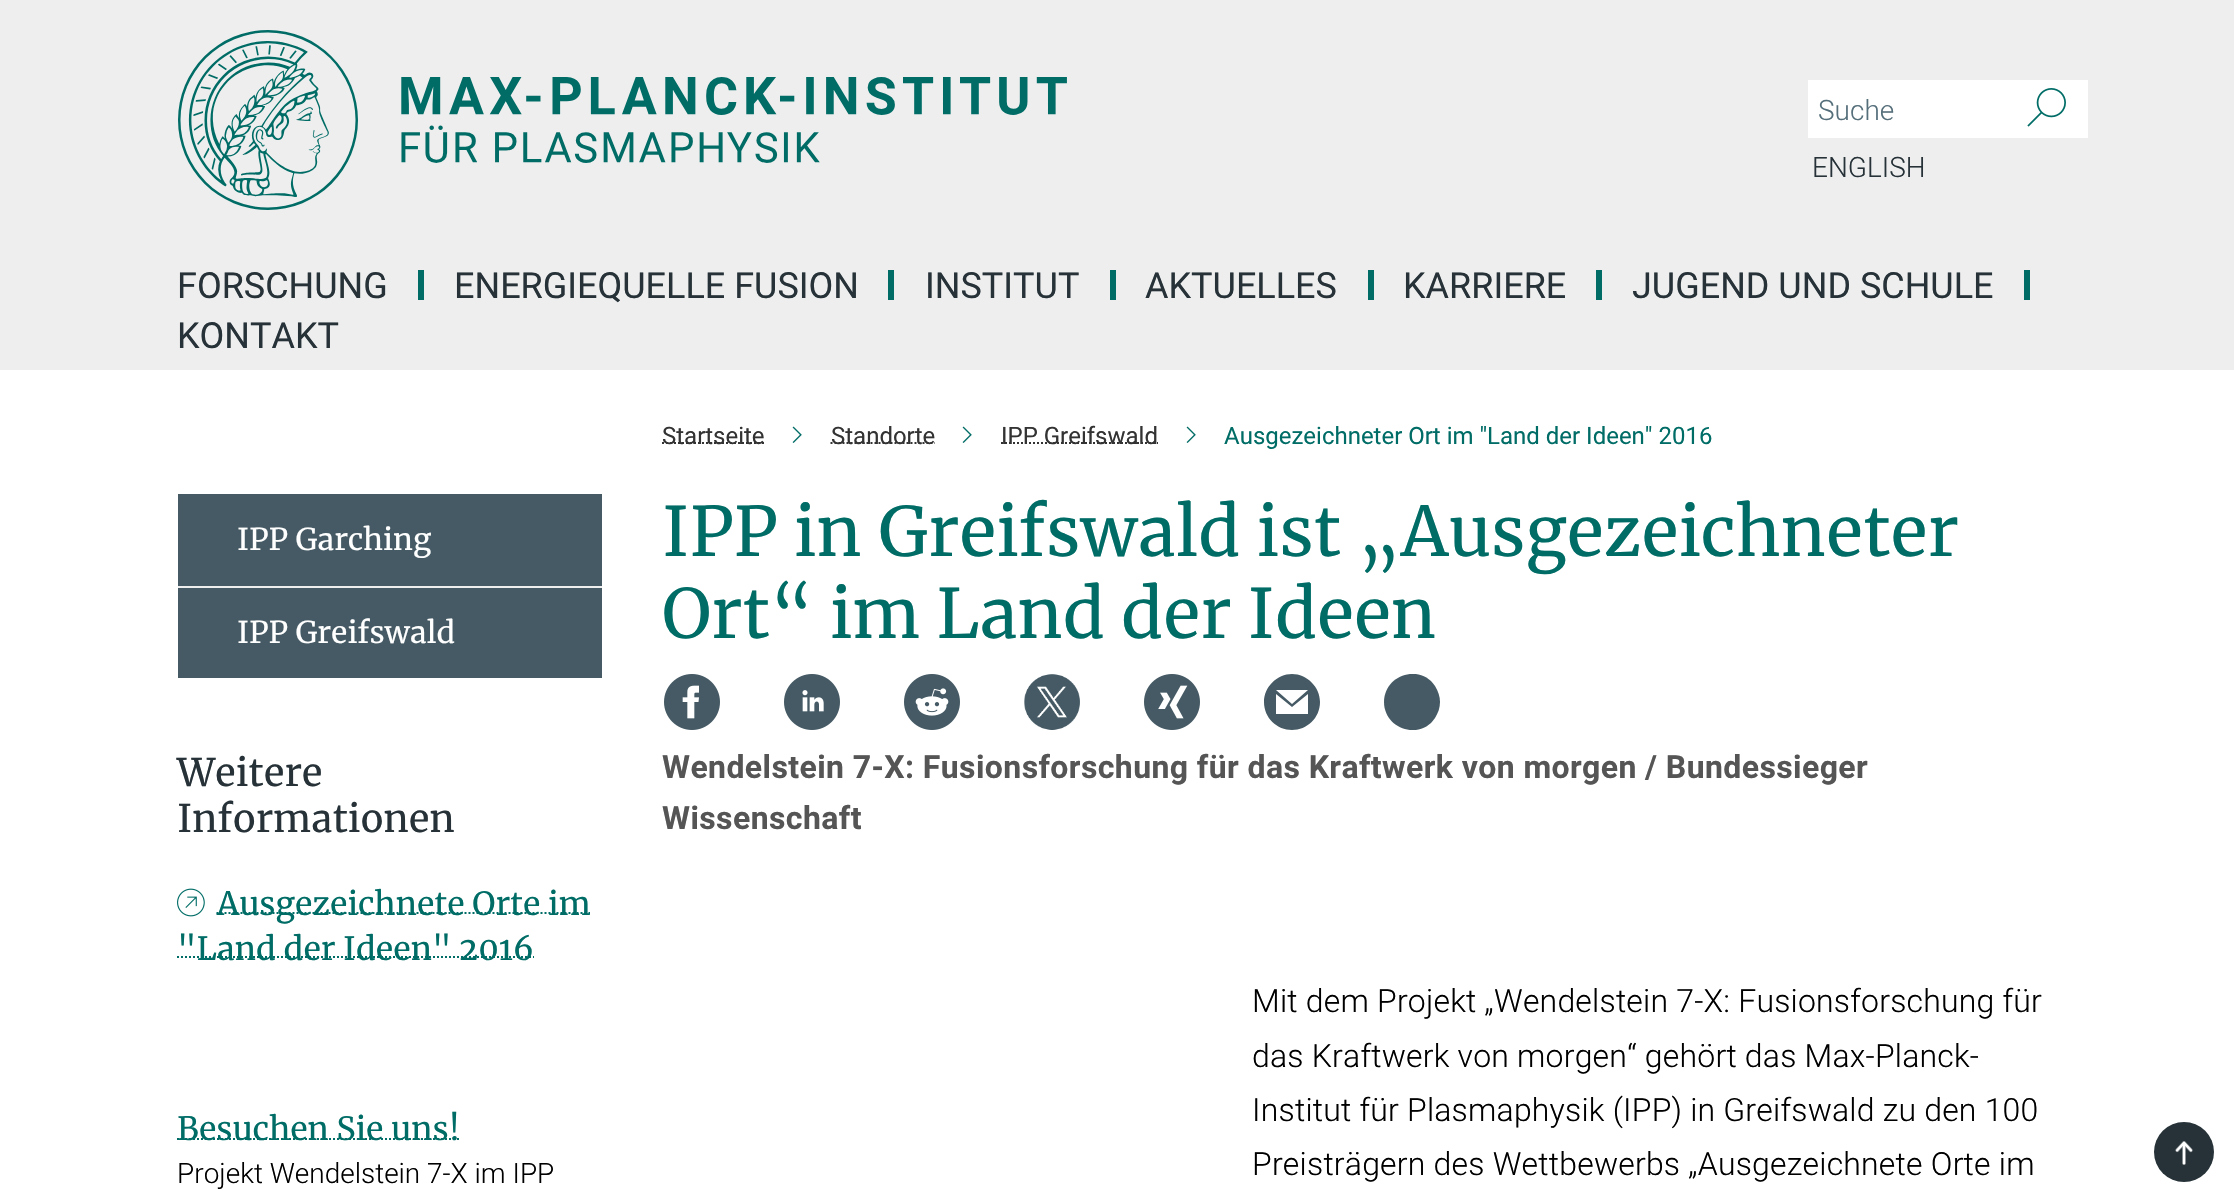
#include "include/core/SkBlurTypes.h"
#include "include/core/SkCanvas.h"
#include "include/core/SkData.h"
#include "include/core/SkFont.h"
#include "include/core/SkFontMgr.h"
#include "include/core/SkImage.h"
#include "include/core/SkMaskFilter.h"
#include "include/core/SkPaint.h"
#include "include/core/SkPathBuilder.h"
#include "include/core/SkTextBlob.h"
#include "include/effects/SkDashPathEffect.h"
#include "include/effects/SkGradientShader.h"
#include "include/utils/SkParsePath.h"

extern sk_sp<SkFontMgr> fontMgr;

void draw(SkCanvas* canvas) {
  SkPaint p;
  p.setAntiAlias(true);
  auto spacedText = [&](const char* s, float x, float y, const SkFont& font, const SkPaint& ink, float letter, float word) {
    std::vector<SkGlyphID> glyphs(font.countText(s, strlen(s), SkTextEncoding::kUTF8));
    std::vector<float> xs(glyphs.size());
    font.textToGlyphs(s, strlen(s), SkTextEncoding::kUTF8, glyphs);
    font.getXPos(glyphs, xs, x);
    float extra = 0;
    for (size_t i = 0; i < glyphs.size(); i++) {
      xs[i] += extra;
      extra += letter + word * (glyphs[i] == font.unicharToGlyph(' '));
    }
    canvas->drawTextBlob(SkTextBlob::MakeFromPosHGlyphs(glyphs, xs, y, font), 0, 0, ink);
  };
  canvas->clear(SK_ColorWHITE);
  p.setColor(SkColorSetRGB(238, 238, 238));
  canvas->drawRect(SkRect::MakeLTRB(0, 0, 2234, 370), p);
  canvas->drawImageRect(SkImages::DeferredFromEncodedData(SkData::MakeFromFileName("images/1.png")), SkRect::MakeLTRB(178, 30, 1067, 210), SkSamplingOptions());
  p.setColor(SK_ColorWHITE);
  canvas->drawRect(SkRect::MakeLTRB(1808, 80, 2088, 138), p);
  canvas->drawImageRect(SkImages::DeferredFromEncodedData(SkData::MakeFromFileName("images/2.png")), SkRect::MakeLTRB(2027, 88, 2066, 127), SkSamplingOptions());
  p.setColor(SkColorSetRGB(0, 108, 102));
  canvas->drawRect(SkRect::MakeLTRB(418, 270, 424, 300), p);
  canvas->drawRect(SkRect::MakeLTRB(888, 270, 894, 300), p);
  canvas->drawRect(SkRect::MakeLTRB(1110, 270, 1116, 300), p);
  canvas->drawRect(SkRect::MakeLTRB(1368, 270, 1374, 300), p);
  canvas->drawRect(SkRect::MakeLTRB(1596, 270, 1602, 300), p);
  canvas->drawRect(SkRect::MakeLTRB(2024, 270, 2030, 300), p);
  p.setColor(SkColorSetRGB(69, 90, 100));
  canvas->drawRect(SkRect::MakeLTRB(178, 494, 602, 586), p);
  p.setColor(SkColorSetRGB(238, 238, 238));
  canvas->drawRect(SkRect::MakeLTRB(178, 586, 602, 588), p);
  p.setColor(SkColorSetRGB(69, 90, 100));
  canvas->drawRect(SkRect::MakeLTRB(178, 588, 602, 678), p);
  canvas->drawImageRect(SkImages::DeferredFromEncodedData(SkData::MakeFromFileName("images/3.png")), SkRect::MakeLTRB(177, 888, 205, 917), SkSamplingOptions());
  p.setStyle(SkPaint::kStroke_Style);
  p.setStrokeWidth(2);
  p.setColor(SkColorSetRGB(0, 108, 102));
  p.setPathEffect(SkDashPathEffect::Make({{2, 2}}, 0));
  canvas->drawPath(SkPathBuilder().moveTo(216.5f, 913).lineTo(590, 913).detach(), p);
  p.setPathEffect(nullptr);
  p.setPathEffect(SkDashPathEffect::Make({{2, 2}}, 0));
  canvas->drawPath(SkPathBuilder().moveTo(177, 957).lineTo(534, 957).detach(), p);
  p.setPathEffect(nullptr);
  p.setPathEffect(SkDashPathEffect::Make({{2, 2}}, 0));
  canvas->drawPath(SkPathBuilder().moveTo(177, 1139).lineTo(460, 1139).detach(), p);
  p.setPathEffect(nullptr);
  p.setColor(SkColorSetRGB(51, 51, 51));
  p.setPathEffect(SkDashPathEffect::Make({{2, 2}}, 0));
  canvas->drawPath(SkPathBuilder().moveTo(662, 443).lineTo(764.5f, 443).detach(), p);
  p.setPathEffect(nullptr);
  canvas->drawImageRect(SkImages::DeferredFromEncodedData(SkData::MakeFromFileName("images/4.png")), SkRect::MakeLTRB(792, 426, 802, 443), SkSamplingOptions());
  p.setPathEffect(SkDashPathEffect::Make({{2, 2}}, 0));
  canvas->drawPath(SkPathBuilder().moveTo(830.5f, 443).lineTo(935, 443).detach(), p);
  p.setPathEffect(nullptr);
  canvas->drawImageRect(SkImages::DeferredFromEncodedData(SkData::MakeFromFileName("images/4.png")), SkRect::MakeLTRB(962, 426, 972, 443), SkSamplingOptions());
  p.setPathEffect(SkDashPathEffect::Make({{2, 2}}, 0));
  canvas->drawPath(SkPathBuilder().moveTo(1001, 443).lineTo(1158, 443).detach(), p);
  p.setPathEffect(nullptr);
  canvas->drawImageRect(SkImages::DeferredFromEncodedData(SkData::MakeFromFileName("images/4.png")), SkRect::MakeLTRB(1186, 426, 1196, 443), SkSamplingOptions());
  canvas->drawImageRect(SkImages::DeferredFromEncodedData(SkData::MakeFromFileName("images/5.png")), SkRect::MakeLTRB(664, 674, 720, 730), SkSamplingOptions());
  canvas->drawImageRect(SkImages::DeferredFromEncodedData(SkData::MakeFromFileName("images/6.png")), SkRect::MakeLTRB(784, 674, 840, 730), SkSamplingOptions());
  canvas->drawImageRect(SkImages::DeferredFromEncodedData(SkData::MakeFromFileName("images/7.png")), SkRect::MakeLTRB(904, 674, 960, 730), SkSamplingOptions());
  canvas->drawImageRect(SkImages::DeferredFromEncodedData(SkData::MakeFromFileName("images/8.png")), SkRect::MakeLTRB(1024, 674, 1080, 730), SkSamplingOptions());
  canvas->drawImageRect(SkImages::DeferredFromEncodedData(SkData::MakeFromFileName("images/9.png")), SkRect::MakeLTRB(1144, 674, 1200, 730), SkSamplingOptions());
  p.setStyle(SkPaint::kFill_Style);
  p.setColor(SkColorSetRGB(69, 90, 100));
  canvas->drawPath(SkPathBuilder().moveTo(1292, 674).cubicTo(1277, 674, 1264, 687, 1264, 702).cubicTo(1264, 718, 1277, 730, 1292, 730).cubicTo(1307, 730, 1320, 718, 1320, 702).cubicTo(1320, 687, 1307, 674, 1292, 674).close().moveTo(1308, 690).lineTo(1292, 704).lineTo(1276, 690).close().moveTo(1308, 714).lineTo(1276, 714).lineTo(1276, 694).lineTo(1292, 707).lineTo(1308, 694).close().detach(), p);
  canvas->save();
  canvas->clipRect(SkRect::MakeLTRB(1384, 674, 1440, 730));
  canvas->drawPath(SkPathBuilder().moveTo(1440, 702).cubicTo(1440, 708, 1438, 713, 1435, 718).cubicTo(1420, 741, 1384, 729, 1384, 702).cubicTo(1384, 675, 1420, 663, 1435, 686).cubicTo(1438, 691, 1440, 696, 1440, 702).close().detach(), p);
  canvas->restore();
  p.setColor(SkColorSetRGB(38, 50, 56));
  canvas->drawCircle(2184, 1152, 30, p);
  canvas->drawImageRect(SkImages::DeferredFromEncodedData(SkData::MakeFromFileName("images/10.png")), SkRect::MakeLTRB(2175, 1141, 2193, 1165), SkSamplingOptions());
  SkFont font1(fontMgr->matchFamilyStyle("Roboto", SkFontStyle(300, SkFontStyle::kNormal_Width, SkFontStyle::kUpright_Slant)), 28);
  font1.setSubpixel(true);
  p.setColor(SkColorSetRGB(84, 110, 122));
  canvas->drawString("Suche", 1818, 120, font1, p);
  p.setColor(SkColorSetRGB(38, 50, 56));
  canvas->drawString("ENGLISH", 1812, 177, font1, p);
  SkFont font2(fontMgr->matchFamilyStyle("Roboto", SkFontStyle::Normal()), 36);
  font2.setSubpixel(true);
  canvas->drawString("FORSCHUNG", 177, 298, font2, p);
  canvas->drawString("ENERGIEQUELLE FUSION", 454, 298, font2, p);
  canvas->drawString("INSTITUT", 925, 298, font2, p);
  canvas->drawString("AKTUELLES", 1145, 298, font2, p);
  canvas->drawString("KARRIERE", 1403, 298, font2, p);
  canvas->drawString("JUGEND UND SCHULE", 1632, 298, font2, p);
  canvas->drawString("KONTAKT", 177, 348, font2, p);
  SkFont font3(fontMgr->matchFamilyStyle("Merriweather", SkFontStyle::Normal()), 30);
  font3.setSubpixel(true);
  p.setColor(SK_ColorWHITE);
  canvas->drawString("IPP Garching", 237, 550, font3, p);
  canvas->drawString("IPP Greifswald", 237, 643, font3, p);
  SkFont font4(fontMgr->matchFamilyStyle("Merriweather", SkFontStyle::Normal()), 38);
  font4.setSubpixel(true);
  p.setColor(SkColorSetRGB(38, 50, 56));
  canvas->drawString("Weitere", 177, 786, font4, p);
  canvas->drawString("Informationen", 177, 832, font4, p);
  SkFont font5(fontMgr->matchFamilyStyle("Merriweather", SkFontStyle::Normal()), 32);
  font5.setSubpixel(true);
  p.setColor(SkColorSetRGB(0, 108, 102));
  canvas->drawString("Ausgezeichnete Orte im", 217, 915, font5, p);
  canvas->drawString("\"Land der Ideen\" 2016", 177, 960, font5, p);
  canvas->drawString("Besuchen Sie uns!", 177, 1140, font5, p);
  p.setColor(SK_ColorBLACK);
  canvas->drawString("Projekt Wendelstein 7-X im IPP", 177, 1183, font1, p);
  SkFont font6(fontMgr->matchFamilyStyle("Roboto", SkFontStyle::Normal()), 24);
  font6.setSubpixel(true);
  p.setColor(SkColorSetRGB(51, 51, 51));
  canvas->drawString("Startseite", 662, 444, font6, p);
  canvas->drawString("Standorte", 831, 444, font6, p);
  canvas->drawString("IPP Greifswald", 1001, 444, font6, p);
  p.setColor(SkColorSetRGB(0, 108, 102));
  canvas->drawString("Ausgezeichneter Ort im \"Land der Ideen\" 2016", 1224, 444, font6, p);
  SkFont font7(fontMgr->matchFamilyStyle("Merriweather", SkFontStyle::Normal()), 68);
  font7.setSubpixel(true);
  canvas->drawString("IPP in Greifswald ist „Ausgezeichneter", 662, 556, font7, p);
  canvas->drawString("Ort“ im Land der Ideen", 662, 638, font7, p);
  SkFont font8(fontMgr->matchFamilyStyle("Roboto", SkFontStyle::Bold()), 32);
  font8.setSubpixel(true);
  p.setColor(SkColorSetRGB(85, 85, 85));
  spacedText("Wendelstein 7-X: Fusionsforschung für das Kraftwerk von morgen / Bundessieger", 662, 778, font8, p, 0.4f, 0);
  spacedText("Wissenschaft", 662, 829, font8, p, 0.4f, 0);
  SkFont font9(fontMgr->matchFamilyStyle("Roboto", SkFontStyle(300, SkFontStyle::kNormal_Width, SkFontStyle::kUpright_Slant)), 32);
  font9.setSubpixel(true);
  p.setColor(SK_ColorBLACK);
  spacedText("Mit dem Projekt „Wendelstein 7-X: Fusionsforschung für", 1252, 1012, font9, p, 0.2f, 0);
  spacedText("das Kraftwerk von morgen“ gehört das Max-Planck-", 1252, 1067, font9, p, 0.2f, 0);
  spacedText("Institut für Plasmaphysik (IPP) in Greifswald zu den 100", 1252, 1121, font9, p, 0.2f, 0);
  spacedText("Preisträgern des Wettbewerbs „Ausgezeichnete Orte im", 1252, 1175, font9, p, 0.2f, 0);
}
